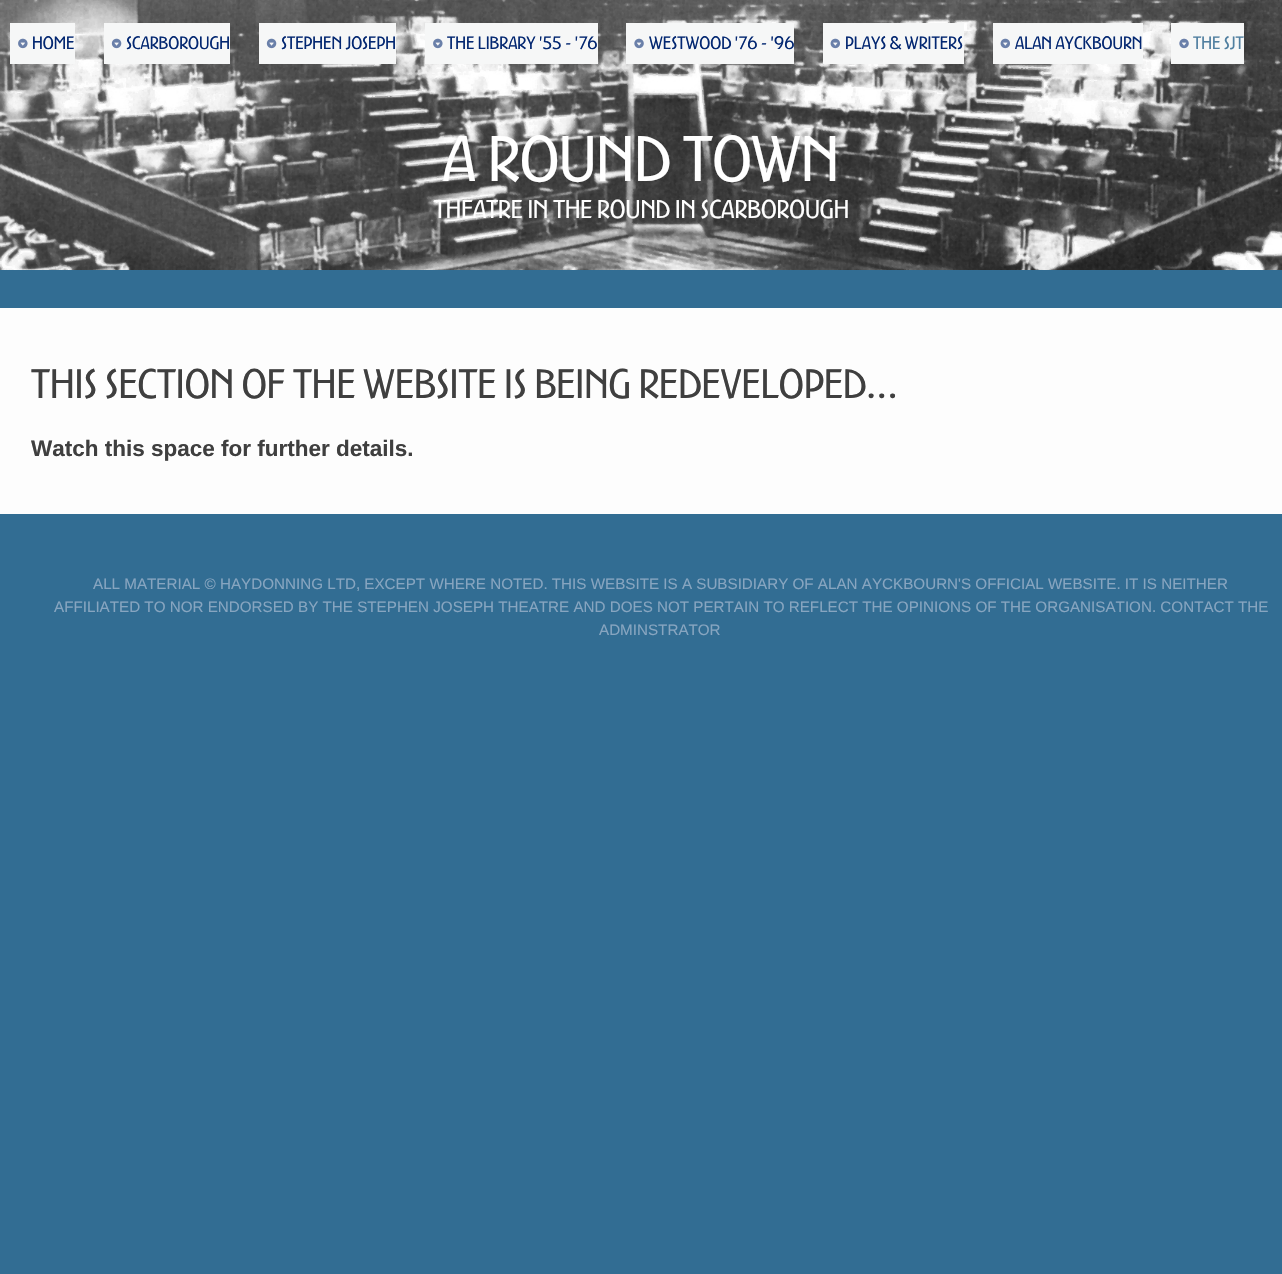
#include "include/core/SkBlurTypes.h"
#include "include/core/SkCanvas.h"
#include "include/core/SkData.h"
#include "include/core/SkFont.h"
#include "include/core/SkFontMgr.h"
#include "include/core/SkImage.h"
#include "include/core/SkMaskFilter.h"
#include "include/core/SkPaint.h"
#include "include/core/SkPathBuilder.h"
#include "include/core/SkTextBlob.h"
#include "include/effects/SkDashPathEffect.h"
#include "include/effects/SkGradientShader.h"
#include "include/utils/SkParsePath.h"

extern sk_sp<SkFontMgr> fontMgr;

void draw(SkCanvas* canvas) {
  SkPaint p;
  p.setAntiAlias(true);
  canvas->clear(SkColorSetRGB(50, 109, 147));
  canvas->drawImageRect(SkImages::DeferredFromEncodedData(SkData::MakeFromFileName("images/9.png")), SkRect::MakeLTRB(0, 0, 1282, 270), SkSamplingOptions());
  p.setColor(SkColorSetRGB(246, 247, 247));
  canvas->drawRect(SkRect::MakeLTRB(10, 23, 75, 64), p);
  canvas->drawImageRect(SkImages::DeferredFromEncodedData(SkData::MakeFromFileName("images/2.png")), SkRect::MakeLTRB(18, 38, 28, 49), SkSamplingOptions());
  canvas->drawImageRect(SkImages::DeferredFromEncodedData(SkData::MakeFromFileName("images/1.png")), SkRect::MakeLTRB(18, 38, 28, 49), SkSamplingOptions());
  canvas->drawRect(SkRect::MakeLTRB(104, 23, 230, 64), p);
  canvas->drawImageRect(SkImages::DeferredFromEncodedData(SkData::MakeFromFileName("images/4.png")), SkRect::MakeLTRB(111, 38, 122, 49), SkSamplingOptions());
  canvas->drawImageRect(SkImages::DeferredFromEncodedData(SkData::MakeFromFileName("images/3.png")), SkRect::MakeLTRB(111, 38, 122, 49), SkSamplingOptions());
  canvas->drawRect(SkRect::MakeLTRB(259, 23, 396, 64), p);
  canvas->drawImageRect(SkImages::DeferredFromEncodedData(SkData::MakeFromFileName("images/4.png")), SkRect::MakeLTRB(266, 38, 277, 49), SkSamplingOptions());
  canvas->drawImageRect(SkImages::DeferredFromEncodedData(SkData::MakeFromFileName("images/3.png")), SkRect::MakeLTRB(266, 38, 277, 49), SkSamplingOptions());
  canvas->drawRect(SkRect::MakeLTRB(425, 23, 598, 64), p);
  canvas->drawImageRect(SkImages::DeferredFromEncodedData(SkData::MakeFromFileName("images/2.png")), SkRect::MakeLTRB(433, 38, 443, 49), SkSamplingOptions());
  canvas->drawImageRect(SkImages::DeferredFromEncodedData(SkData::MakeFromFileName("images/1.png")), SkRect::MakeLTRB(433, 38, 443, 49), SkSamplingOptions());
  canvas->drawRect(SkRect::MakeLTRB(626, 23, 794, 64), p);
  canvas->drawImageRect(SkImages::DeferredFromEncodedData(SkData::MakeFromFileName("images/6.png")), SkRect::MakeLTRB(634, 38, 644, 49), SkSamplingOptions());
  canvas->drawImageRect(SkImages::DeferredFromEncodedData(SkData::MakeFromFileName("images/5.png")), SkRect::MakeLTRB(634, 38, 644, 49), SkSamplingOptions());
  canvas->drawRect(SkRect::MakeLTRB(823, 23, 964, 64), p);
  canvas->drawImageRect(SkImages::DeferredFromEncodedData(SkData::MakeFromFileName("images/8.png")), SkRect::MakeLTRB(830, 38, 840, 49), SkSamplingOptions());
  canvas->drawImageRect(SkImages::DeferredFromEncodedData(SkData::MakeFromFileName("images/7.png")), SkRect::MakeLTRB(830, 38, 840, 49), SkSamplingOptions());
  canvas->drawRect(SkRect::MakeLTRB(993, 23, 1143, 64), p);
  canvas->drawImageRect(SkImages::DeferredFromEncodedData(SkData::MakeFromFileName("images/8.png")), SkRect::MakeLTRB(1000, 38, 1010, 49), SkSamplingOptions());
  canvas->drawImageRect(SkImages::DeferredFromEncodedData(SkData::MakeFromFileName("images/7.png")), SkRect::MakeLTRB(1000, 38, 1010, 49), SkSamplingOptions());
  canvas->drawRect(SkRect::MakeLTRB(1171, 23, 1244, 64), p);
  canvas->drawImageRect(SkImages::DeferredFromEncodedData(SkData::MakeFromFileName("images/6.png")), SkRect::MakeLTRB(1179, 38, 1189, 49), SkSamplingOptions());
  canvas->drawImageRect(SkImages::DeferredFromEncodedData(SkData::MakeFromFileName("images/5.png")), SkRect::MakeLTRB(1179, 38, 1189, 49), SkSamplingOptions());
  p.setColor(SkColorSetRGB(253, 253, 253));
  canvas->drawRect(SkRect::MakeLTRB(0, 308, 1282, 514), p);
  SkFont font1(fontMgr->matchFamilyStyle("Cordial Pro", SkFontStyle::Normal()), 17.5f);
  font1.setSubpixel(true);
  p.setColor(SkColorSetRGB(3, 39, 113));
  canvas->drawString("HOME", 32, 49, font1, p);
  canvas->drawString("SCARBOROUGH", 126, 49, font1, p);
  canvas->drawString("STEPHEN JOSEPH", 281, 49, font1, p);
  canvas->drawString("THE LIBRARY '55 - '76", 447, 49, font1, p);
  canvas->drawString("WESTWOOD '76 - '96", 649, 49, font1, p);
  canvas->drawString("PLAYS & WRITERS", 845, 49, font1, p);
  canvas->drawString("ALAN AYCKBOURN", 1015, 49, font1, p);
  p.setColor(SkColorSetRGB(80, 127, 160));
  canvas->drawString("THE SJT", 1193, 49, font1, p);
  SkFont font2(fontMgr->matchFamilyStyle("Cordial Pro", SkFontStyle::Normal()), 62.5f);
  font2.setSubpixel(true);
  p.setColor(SK_ColorWHITE);
  canvas->drawString("A Round Town", 443, 181, font2, p);
  SkFont font3(fontMgr->matchFamilyStyle("Cordial Pro", SkFontStyle::Normal()), 25);
  font3.setSubpixel(true);
  canvas->drawString("Theatre in the Round in Scarborough", 434, 218, font3, p);
  SkFont font4(fontMgr->matchFamilyStyle("Cordial Pro", SkFontStyle::Normal()), 40);
  font4.setSubpixel(true);
  p.setColor(SkColorSetRGB(63, 63, 63));
  canvas->drawString("This section of the website is being redeveloped…", 31, 398, font4, p);
  SkFont font5(fontMgr->matchFamilyStyle("Liberation Sans", SkFontStyle::Bold()), 22.5f);
  font5.setSubpixel(true);
  canvas->drawString("Watch this space for further details.", 31, 456, font5, p);
  SkFont font6(fontMgr->matchFamilyStyle("Liberation Sans", SkFontStyle::Normal()), 15.2f);
  font6.setSubpixel(true);
  p.setColor(SkColorSetRGB(135, 165, 192));
  canvas->drawString("ALL MATERIAL © HAYDONNING LTD, EXCEPT WHERE NOTED. THIS WEBSITE IS A SUBSIDIARY OF ALAN AYCKBOURN'S OFFICIAL WEBSITE. IT IS NEITHER", 93, 589, font6, p);
  canvas->drawString("AFFILIATED TO NOR ENDORSED BY THE STEPHEN JOSEPH THEATRE AND DOES NOT PERTAIN TO REFLECT THE OPINIONS OF THE ORGANISATION. CONTACT THE", 54, 612, font6, p);
  canvas->drawString("ADMINSTRATOR", 599, 635, font6, p);
}
